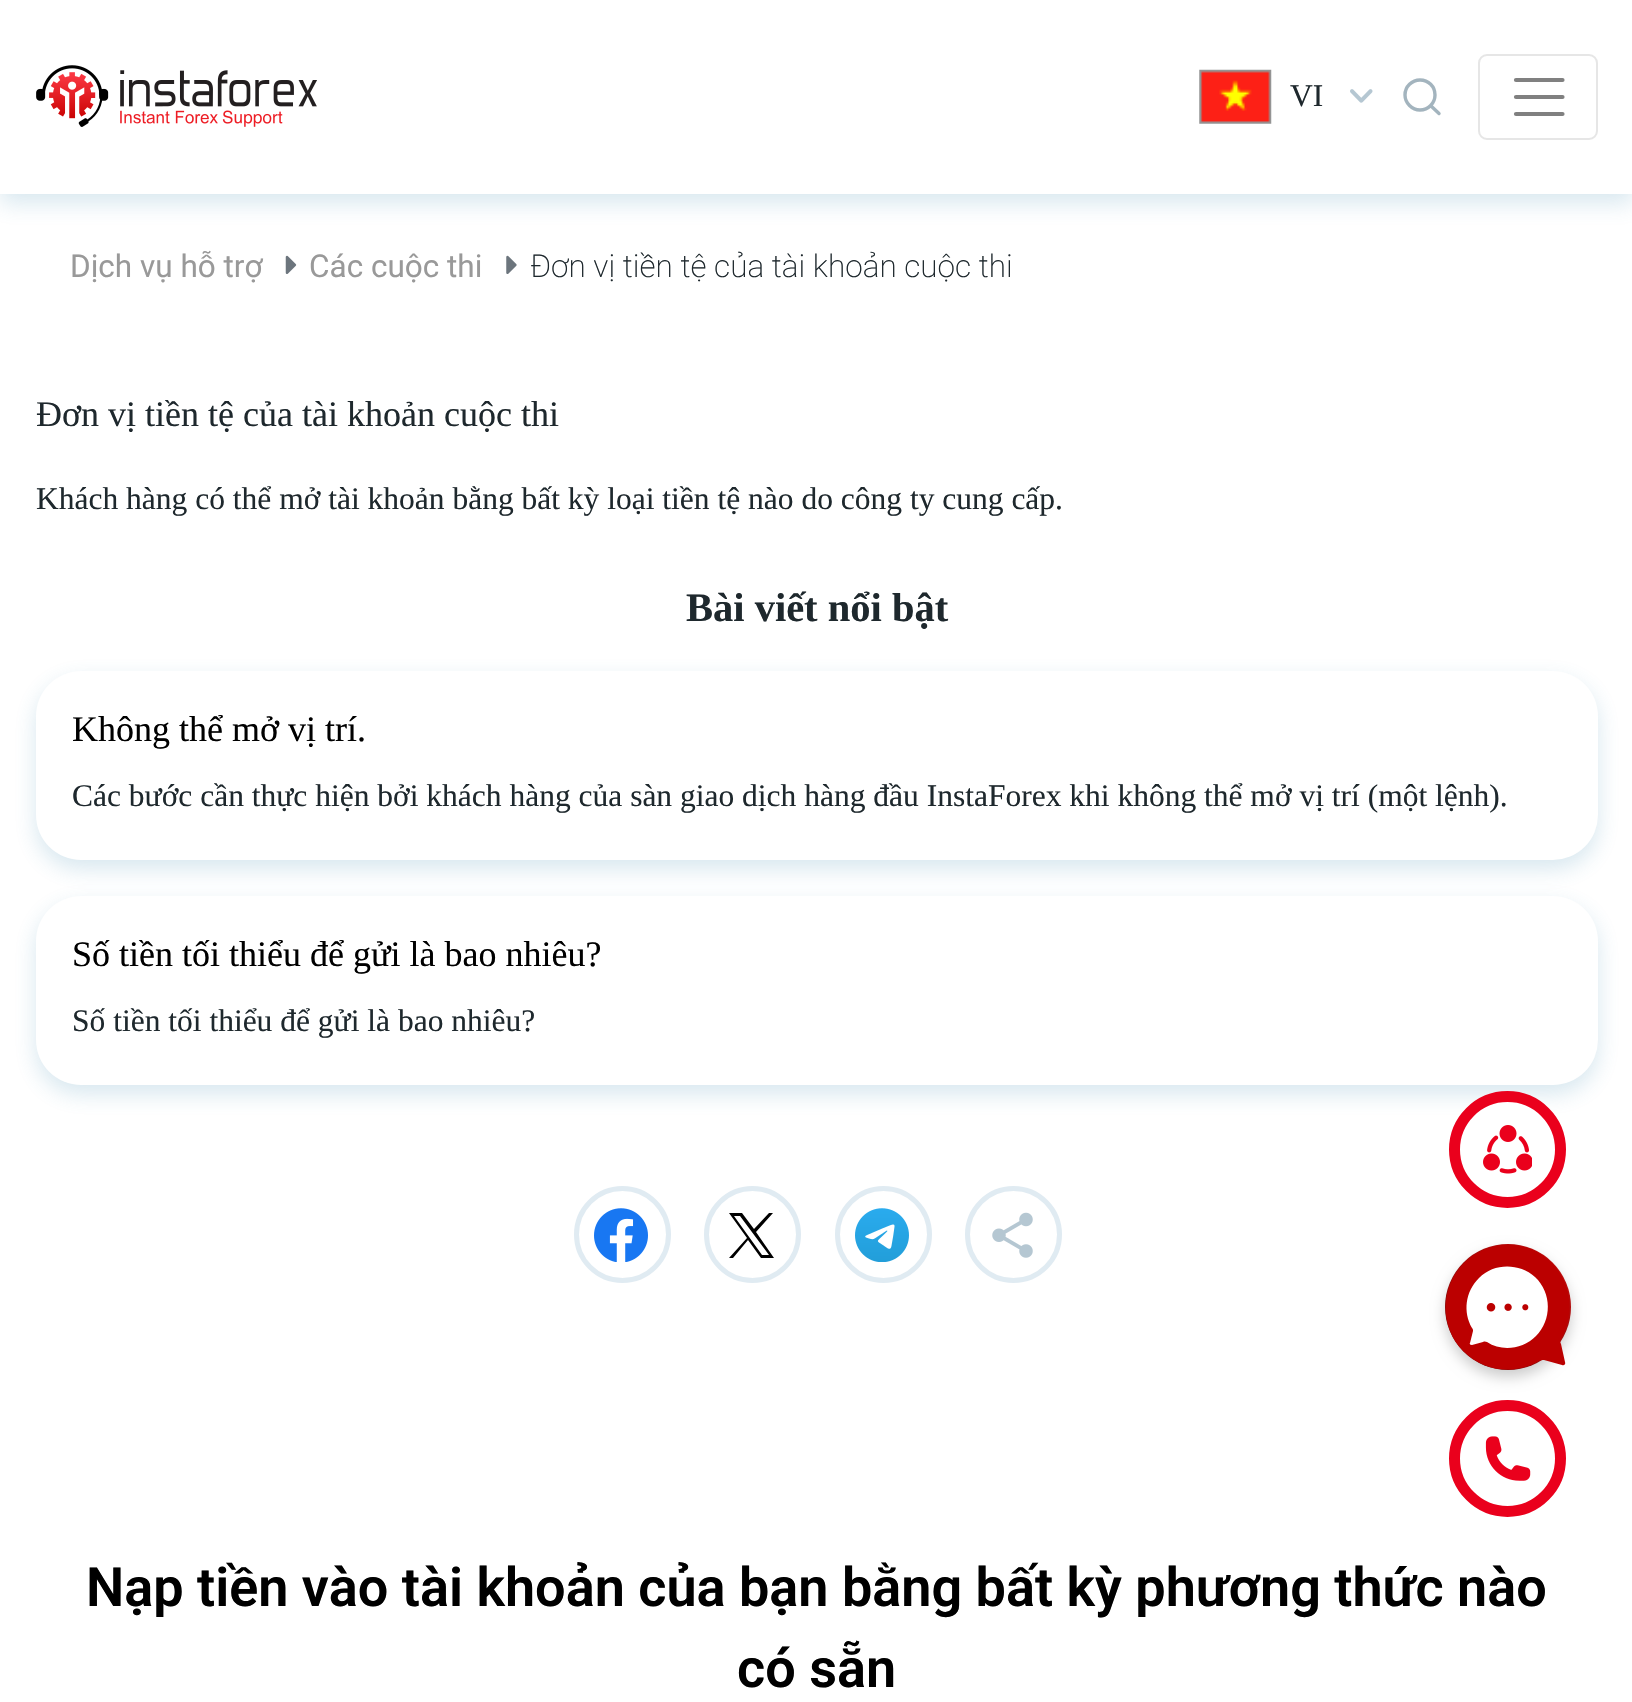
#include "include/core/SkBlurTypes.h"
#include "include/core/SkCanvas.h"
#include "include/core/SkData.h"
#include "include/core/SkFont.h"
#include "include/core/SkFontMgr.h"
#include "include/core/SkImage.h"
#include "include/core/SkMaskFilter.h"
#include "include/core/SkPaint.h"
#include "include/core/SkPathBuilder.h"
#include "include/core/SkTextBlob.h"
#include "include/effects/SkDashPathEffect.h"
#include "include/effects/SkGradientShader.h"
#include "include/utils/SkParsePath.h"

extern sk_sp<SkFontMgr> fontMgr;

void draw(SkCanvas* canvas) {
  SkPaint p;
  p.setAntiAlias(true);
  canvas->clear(SK_ColorWHITE);
  canvas->save();
  canvas->clipPath(SkPathBuilder(SkPathFillType::kEvenOdd).moveTo(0, 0).lineTo(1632, 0).lineTo(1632, 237).lineTo(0, 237).close().moveTo(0, 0).lineTo(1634, 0).lineTo(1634, 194).lineTo(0, 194).close().detach(), true);
  p.setColor(SkColorSetARGB(51, 53, 133, 173));
  p.setMaskFilter(SkMaskFilter::MakeBlur(kNormal_SkBlurStyle, 11));
  canvas->drawRect(SkRect::MakeLTRB(0, 9, 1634, 203), p);
  p.setMaskFilter(nullptr);
  canvas->restore();
  canvas->drawImageRect(SkImages::DeferredFromEncodedData(SkData::MakeFromFileName("images/1.png")), SkRect::MakeLTRB(36, 65, 317, 127), SkSamplingOptions());
  canvas->drawImageRect(SkImages::DeferredFromEncodedData(SkData::MakeFromFileName("images/2.png")), SkRect::MakeLTRB(1199, 69, 1272, 124), SkSamplingOptions());
  canvas->drawImageRect(SkImages::DeferredFromEncodedData(SkData::MakeFromFileName("images/3.png")), SkRect::MakeLTRB(1350, 89, 1373, 103), SkSamplingOptions());
  p.setStyle(SkPaint::kStroke_Style);
  p.setStrokeWidth(3.4f);
  p.setStrokeCap(SkPaint::kRound_Cap);
  p.setStrokeJoin(SkPaint::kRound_Join);
  p.setColor(SkColorSetRGB(163, 180, 190));
  canvas->drawPath(SkPathBuilder().moveTo(1420, 110).cubicTo(1428.5f, 110, 1435, 103, 1435, 95).cubicTo(1435, 86.5f, 1428.5f, 80, 1420, 80).cubicTo(1412, 80, 1405, 86.5f, 1405, 95).cubicTo(1405, 103, 1412, 110, 1420, 110).close().moveTo(1439, 113.5f).lineTo(1430.5f, 105.5f).detach(), p);
  p.setStrokeWidth(2);
  p.setStrokeCap(SkPaint::kButt_Cap);
  p.setStrokeJoin(SkPaint::kMiter_Join);
  p.setColor(SkColorSetRGB(230, 230, 230));
  canvas->drawRoundRect(SkRect::MakeLTRB(1479, 55, 1597, 139), 8, 8, p);
  p.setStrokeWidth(4.2f);
  p.setStrokeCap(SkPaint::kRound_Cap);
  p.setColor(SkColorSetRGB(128, 128, 128));
  canvas->drawPath(SkPathBuilder().moveTo(1516, 80).lineTo(1562.5f, 80).moveTo(1516, 97).lineTo(1562.5f, 97).moveTo(1516, 114).lineTo(1562.5f, 114).detach(), p);
  canvas->drawImageRect(SkImages::DeferredFromEncodedData(SkData::MakeFromFileName("images/4.png")), SkRect::MakeLTRB(285, 255, 297, 274), SkSamplingOptions());
  canvas->drawImageRect(SkImages::DeferredFromEncodedData(SkData::MakeFromFileName("images/5.png")), SkRect::MakeLTRB(506, 255, 517, 274), SkSamplingOptions());
  p.setStyle(SkPaint::kFill_Style);
  p.setColor(SkColorSetARGB(51, 53, 133, 173));
  p.setMaskFilter(SkMaskFilter::MakeBlur(kNormal_SkBlurStyle, 11));
  canvas->drawRoundRect(SkRect::MakeLTRB(36, 680, 1598, 869), 45, 45, p);
  p.setMaskFilter(nullptr);
  p.setColor(SK_ColorWHITE);
  canvas->drawRoundRect(SkRect::MakeLTRB(36, 671, 1598, 860), 45, 45, p);
  p.setColor(SkColorSetARGB(51, 53, 133, 173));
  p.setMaskFilter(SkMaskFilter::MakeBlur(kNormal_SkBlurStyle, 11));
  canvas->drawRoundRect(SkRect::MakeLTRB(36, 905, 1598, 1094), 45, 45, p);
  p.setMaskFilter(nullptr);
  p.setColor(SK_ColorWHITE);
  canvas->drawRoundRect(SkRect::MakeLTRB(36, 896, 1598, 1085), 45, 45, p);
  p.setStyle(SkPaint::kStroke_Style);
  p.setStrokeWidth(5);
  p.setStrokeCap(SkPaint::kButt_Cap);
  p.setColor(SkColorSetRGB(224, 235, 242));
  canvas->drawCircle(622.5f, 1234.5f, 46, p);
  canvas->drawImageRect(SkImages::DeferredFromEncodedData(SkData::MakeFromFileName("images/6.png")), SkRect::MakeLTRB(594, 1208, 648, 1262), SkSamplingOptions());
  canvas->drawCircle(752.5f, 1234.5f, 46, p);
  p.setStyle(SkPaint::kFill_Style);
  p.setColor(SK_ColorBLACK);
  canvas->drawPath(SkPathBuilder().moveTo(756, 1232).lineTo(773, 1213).lineTo(769, 1213).lineTo(754, 1229).lineTo(742, 1213).lineTo(729, 1213).lineTo(747, 1238).lineTo(729, 1258).lineTo(733, 1258).lineTo(748, 1240).lineTo(761, 1258).lineTo(774, 1258).moveTo(734, 1216).lineTo(740, 1216).lineTo(769, 1255).lineTo(762, 1255).detach(), p);
  p.setStyle(SkPaint::kStroke_Style);
  p.setColor(SkColorSetRGB(224, 235, 242));
  canvas->drawCircle(883.5f, 1234.5f, 46, p);
  canvas->drawImageRect(SkImages::DeferredFromEncodedData(SkData::MakeFromFileName("images/7.png")), SkRect::MakeLTRB(855, 1208, 909, 1262), SkSamplingOptions());
  canvas->drawCircle(1013.5f, 1234.5f, 46, p);
  canvas->drawImageRect(SkImages::DeferredFromEncodedData(SkData::MakeFromFileName("images/8.png")), SkRect::MakeLTRB(992, 1212, 1033, 1258), SkSamplingOptions());
  p.setStyle(SkPaint::kFill_Style);
  p.setColor(SK_ColorWHITE);
  canvas->drawCircle(1507.5f, 1149.5f, 53, p);
  p.setStyle(SkPaint::kStroke_Style);
  p.setStrokeWidth(11);
  p.setColor(SkColorSetRGB(234, 0, 28));
  canvas->drawCircle(1507.5f, 1149.5f, 53, p);
  canvas->drawImageRect(SkImages::DeferredFromEncodedData(SkData::MakeFromFileName("images/9.png")), SkRect::MakeLTRB(1483, 1125, 1532, 1174), SkSamplingOptions());
  p.setStyle(SkPaint::kFill_Style);
  p.setColor(SkColorSetARGB(51, 0, 0, 0));
  p.setMaskFilter(SkMaskFilter::MakeBlur(kNormal_SkBlurStyle, 7));
  canvas->drawRoundRect(SkRect::MakeLTRB(1445, 1251, 1571, 1377), 63, 63, p);
  p.setMaskFilter(nullptr);
  {
    const SkColor colors[] = {SkColorSetRGB(102, 6, 6), SkColorSetRGB(204, 13, 13)};
    const float stops[] = {0, 1};
    const SkPoint ends[] = {{1445, 1370}, {1571, 1244}};
    p.setShader(SkGradientShader::MakeLinear(ends, colors, stops, 2, SkTileMode::kClamp));
    p.setAlpha(255);
  }
  canvas->drawCircle(1508, 1307, 63, p);
  p.setShader(nullptr);
  p.setColor(SkColorSetRGB(187, 0, 0));
  canvas->drawPath(SkPathBuilder().moveTo(1552, 1263).cubicTo(1527, 1238, 1486, 1239, 1462, 1265).cubicTo(1440, 1289, 1440, 1327, 1463, 1351).cubicTo(1484, 1372, 1515, 1375, 1539, 1361).cubicTo(1541, 1360, 1542, 1360, 1544, 1360).lineTo(1562, 1365).cubicTo(1564, 1366, 1566, 1364, 1565, 1362).lineTo(1561, 1344).cubicTo(1560, 1342, 1560, 1341, 1561, 1339).cubicTo(1575, 1315, 1572, 1284, 1552, 1263).close().detach(), p);
  p.setColor(SK_ColorWHITE);
  canvas->drawPath(SkPathBuilder().moveTo(1536, 1336).cubicTo(1552, 1320, 1552, 1293, 1535, 1277).cubicTo(1519, 1263, 1494, 1263, 1479, 1278).cubicTo(1465, 1292, 1463, 1312, 1472, 1328).cubicTo(1473, 1329, 1473, 1330, 1473, 1331).lineTo(1470, 1343).cubicTo(1469, 1344, 1471, 1345, 1472, 1345).lineTo(1483, 1342).cubicTo(1485, 1341, 1486, 1342, 1487, 1342).cubicTo(1502, 1352, 1523, 1349, 1536, 1336).close().detach(), p);
  canvas->drawImageRect(SkImages::DeferredFromEncodedData(SkData::MakeFromFileName("images/10.png")), SkRect::MakeLTRB(1486, 1303, 1529, 1312), SkSamplingOptions());
  p.setStyle(SkPaint::kStroke_Style);
  p.setColor(SkColorSetRGB(234, 0, 28));
  canvas->drawCircle(1507.5f, 1458.5f, 53, p);
  canvas->drawImageRect(SkImages::DeferredFromEncodedData(SkData::MakeFromFileName("images/11.png")), SkRect::MakeLTRB(1485, 1436, 1531, 1481), SkSamplingOptions());
  SkFont font1(fontMgr->matchFamilyStyle("Liberation Serif", SkFontStyle::Normal()), 31.5f);
  font1.setSubpixel(true);
  p.setStyle(SkPaint::kFill_Style);
  p.setColor(SkColorSetRGB(30, 40, 45));
  canvas->drawString("VI", 1290, 106, font1, p);
  SkFont font2(fontMgr->matchFamilyStyle("Roboto", SkFontStyle::Normal()), 31.5f);
  font2.setSubpixel(true);
  p.setColor(SkColorSetRGB(153, 153, 153));
  canvas->drawString("Dịch vụ hỗ trợ", 70, 277, font2, p);
  canvas->drawString("Các cuộc thi", 309, 277, font2, p);
  SkFont font3(fontMgr->matchFamilyStyle("Roboto", SkFontStyle(200, SkFontStyle::kNormal_Width, SkFontStyle::kUpright_Slant)), 31.5f);
  font3.setSubpixel(true);
  p.setColor(SkColorSetRGB(30, 40, 45));
  canvas->drawString("Đơn vị tiền tệ của tài khoản cuộc thi", 530, 277, font3, p);
  SkFont font4(fontMgr->matchFamilyStyle("Liberation Serif", SkFontStyle::Normal()), 36);
  font4.setSubpixel(true);
  canvas->drawString("Đơn vị tiền tệ của tài khoản cuộc thi", 36, 426, font4, p);
  canvas->drawString("Khách hàng có thể mở tài khoản bằng bất kỳ loại tiền tệ nào do công ty cung cấp.", 36, 509, font1, p);
  SkFont font5(fontMgr->matchFamilyStyle("Liberation Serif", SkFontStyle::Bold()), 40.5f);
  font5.setSubpixel(true);
  canvas->drawString("Bài viết nổi bật", 686, 621, font5, p);
  p.setColor(SK_ColorBLACK);
  canvas->drawString("Không thể mở vị trí.", 72, 741, font4, p);
  p.setColor(SkColorSetRGB(30, 40, 45));
  canvas->drawString("Các bước cần thực hiện bởi khách hàng của sàn giao dịch hàng đầu InstaForex khi không thể mở vị trí (một lệnh).", 72, 806, font1, p);
  p.setColor(SK_ColorBLACK);
  canvas->drawString("Số tiền tối thiểu để gửi là bao nhiêu?", 72, 966, font4, p);
  p.setColor(SkColorSetRGB(30, 40, 45));
  canvas->drawString("Số tiền tối thiểu để gửi là bao nhiêu?", 72, 1031, font1, p);
  SkFont font6(fontMgr->matchFamilyStyle("Roboto", SkFontStyle(600, SkFontStyle::kNormal_Width, SkFontStyle::kUpright_Slant)), 54);
  font6.setSubpixel(true);
  p.setColor(SK_ColorBLACK);
  canvas->drawString("Nạp tiền vào tài khoản của bạn bằng bất kỳ phương thức nào", 86, 1606, font6, p);
  canvas->drawString("có sẵn", 737, 1687, font6, p);
}
